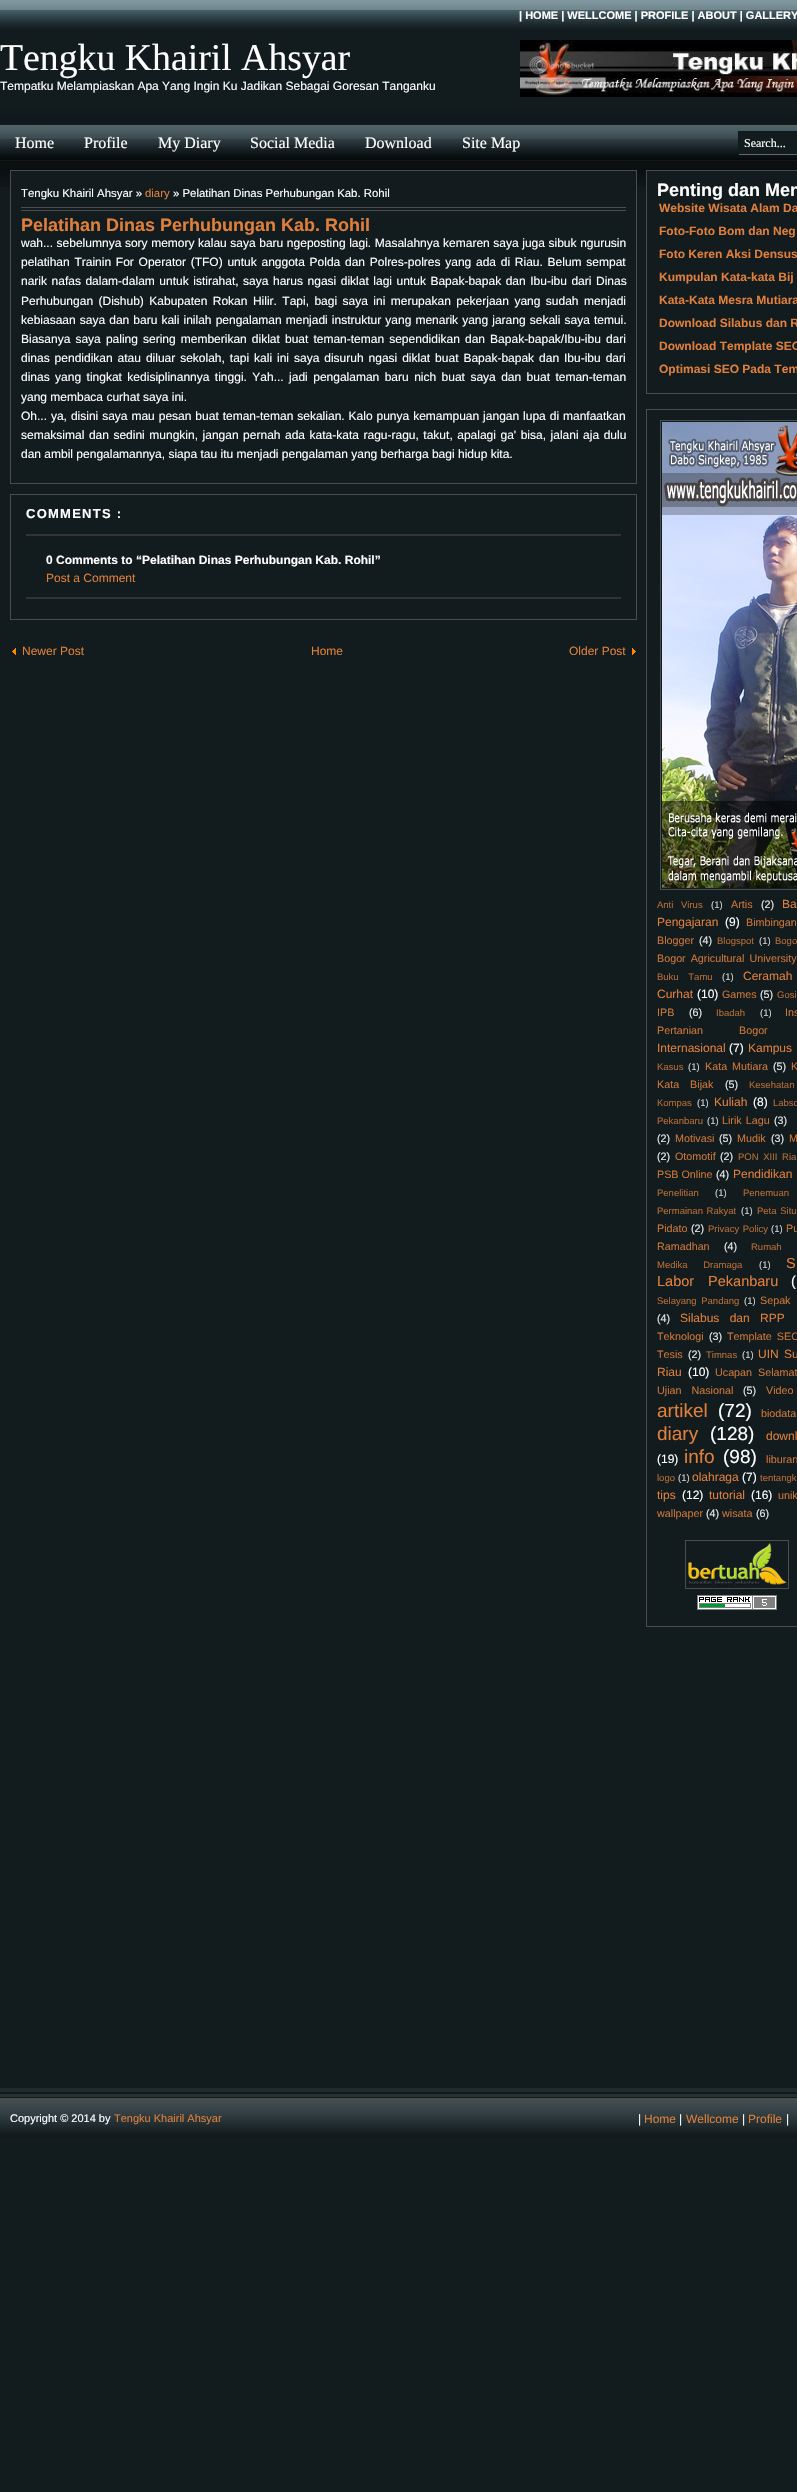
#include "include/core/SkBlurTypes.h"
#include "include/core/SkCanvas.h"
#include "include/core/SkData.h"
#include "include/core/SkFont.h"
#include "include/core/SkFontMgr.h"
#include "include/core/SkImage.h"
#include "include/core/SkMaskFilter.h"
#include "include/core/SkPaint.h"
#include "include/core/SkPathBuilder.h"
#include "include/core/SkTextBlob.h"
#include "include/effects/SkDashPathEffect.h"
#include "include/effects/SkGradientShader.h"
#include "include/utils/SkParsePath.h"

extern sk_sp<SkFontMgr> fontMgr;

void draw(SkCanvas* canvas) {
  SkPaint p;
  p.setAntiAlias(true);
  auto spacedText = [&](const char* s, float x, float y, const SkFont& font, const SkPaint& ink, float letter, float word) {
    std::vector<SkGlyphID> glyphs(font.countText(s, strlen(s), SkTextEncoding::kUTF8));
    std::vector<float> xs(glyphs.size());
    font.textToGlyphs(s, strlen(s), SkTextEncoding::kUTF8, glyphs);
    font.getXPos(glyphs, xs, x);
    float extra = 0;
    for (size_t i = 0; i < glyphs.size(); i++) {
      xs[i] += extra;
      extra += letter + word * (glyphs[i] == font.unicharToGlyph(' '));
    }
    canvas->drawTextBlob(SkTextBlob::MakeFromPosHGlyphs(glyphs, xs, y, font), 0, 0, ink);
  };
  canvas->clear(SkColorSetRGB(18, 27, 30));
  canvas->drawImageRect(SkImages::DeferredFromEncodedData(SkData::MakeFromFileName("images/1.png")), SkRect::MakeLTRB(0, 0, 797, 187), SkSamplingOptions());
  canvas->drawImageRect(SkImages::DeferredFromEncodedData(SkData::MakeFromFileName("images/2.png")), SkRect::MakeLTRB(520, 40, 797, 97), SkSamplingOptions());
  p.setColor(SkColorSetRGB(18, 27, 30));
  canvas->drawRect(SkRect::MakeLTRB(739, 132, 797, 154), p);
  p.setColor(SkColorSetRGB(5, 29, 35));
  canvas->drawRect(SkRect::MakeLTRB(738, 131, 797, 132), p);
  p.setColor(SkColorSetRGB(102, 102, 102));
  canvas->drawRect(SkRect::MakeLTRB(738, 154, 797, 155), p);
  p.setColor(SkColorSetRGB(5, 29, 35));
  canvas->drawRect(SkRect::MakeLTRB(738, 131, 739, 155), p);
  p.setColor(SkColorSetRGB(19, 27, 30));
  canvas->drawRect(SkRect::MakeLTRB(11, 171, 636, 187), p);
  p.setStyle(SkPaint::kStroke_Style);
  p.setStrokeWidth(1);
  p.setColor(SkColorSetRGB(76, 76, 76));
  canvas->drawRect(SkRect::MakeLTRB(10.5f, 170.5f, 636.5f, 483.5f), p);
  p.setStyle(SkPaint::kFill_Style);
  canvas->drawRect(SkRect::MakeLTRB(21, 207, 626, 208), p);
  canvas->drawRect(SkRect::MakeLTRB(21, 210, 626, 211), p);
  p.setStyle(SkPaint::kStroke_Style);
  canvas->drawRect(SkRect::MakeLTRB(10.5f, 494.5f, 636.5f, 619.5f), p);
  p.setStyle(SkPaint::kFill_Style);
  p.setColor(SkColorSetRGB(51, 51, 51));
  canvas->drawRect(SkRect::MakeLTRB(26, 534, 621, 536), p);
  canvas->drawRect(SkRect::MakeLTRB(26, 597, 621, 599), p);
  canvas->drawImageRect(SkImages::DeferredFromEncodedData(SkData::MakeFromFileName("images/3.png")), SkRect::MakeLTRB(12, 648, 16, 655), SkSamplingOptions());
  canvas->drawImageRect(SkImages::DeferredFromEncodedData(SkData::MakeFromFileName("images/4.png")), SkRect::MakeLTRB(632, 648, 636, 655), SkSamplingOptions());
  p.setColor(SkColorSetRGB(19, 27, 30));
  canvas->drawRect(SkRect::MakeLTRB(647, 171, 797, 187), p);
  p.setStyle(SkPaint::kStroke_Style);
  p.setColor(SkColorSetRGB(76, 76, 76));
  canvas->drawRect(SkRect::MakeLTRB(646.5f, 170.5f, 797.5f, 393.5f), p);
  canvas->drawRect(SkRect::MakeLTRB(646.5f, 409.5f, 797.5f, 1626.5f), p);
  canvas->drawRect(SkRect::MakeLTRB(660.5f, 420.5f, 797.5f, 889.5f), p);
  canvas->drawImageRect(SkImages::DeferredFromEncodedData(SkData::MakeFromFileName("images/5.png")), SkRect::MakeLTRB(662, 422, 797, 888), SkSamplingOptions());
  canvas->drawRect(SkRect::MakeLTRB(685.5f, 1540.5f, 788.5f, 1588.5f), p);
  canvas->drawImageRect(SkImages::DeferredFromEncodedData(SkData::MakeFromFileName("images/6.png")), SkRect::MakeLTRB(688, 1543, 787, 1586), SkSamplingOptions());
  canvas->drawImageRect(SkImages::DeferredFromEncodedData(SkData::MakeFromFileName("images/7.png")), SkRect::MakeLTRB(697, 1595, 777, 1610), SkSamplingOptions());
  canvas->drawImageRect(SkImages::DeferredFromEncodedData(SkData::MakeFromFileName("images/8.png")), SkRect::MakeLTRB(0, 2087, 797, 2138), SkSamplingOptions());
  SkFont font1(fontMgr->matchFamilyStyle("Liberation Sans", SkFontStyle::Bold()), 11);
  font1.setSubpixel(true);
  p.setStyle(SkPaint::kFill_Style);
  p.setColor(SK_ColorWHITE);
  canvas->drawString("| HOME | WELLCOME | PROFILE | ABOUT | GALLERY", 519, 19, font1, p);
  SkFont font2(fontMgr->matchFamilyStyle("Liberation Serif", SkFontStyle::Normal()), 37.75f);
  font2.setSubpixel(true);
  canvas->drawString("Tengku Khairil Ahsyar", 0, 70, font2, p);
  SkFont font3(fontMgr->matchFamilyStyle("Liberation Sans", SkFontStyle::Normal()), 12);
  font3.setSubpixel(true);
  canvas->drawString("Tempatku Melampiaskan Apa Yang Ingin Ku Jadikan Sebagai Goresan Tanganku", 0, 90, font3, p);
  SkFont font4(fontMgr->matchFamilyStyle("Liberation Serif", SkFontStyle::Normal()), 16);
  font4.setSubpixel(true);
  canvas->drawString("Home", 15, 148, font4, p);
  canvas->drawString("Profile", 84, 148, font4, p);
  canvas->drawString("My Diary", 158, 148, font4, p);
  canvas->drawString("Social Media", 250, 148, font4, p);
  canvas->drawString("Download", 365, 148, font4, p);
  canvas->drawString("Site Map", 462, 148, font4, p);
  SkFont font5(fontMgr->matchFamilyStyle("Liberation Serif", SkFontStyle::Normal()), 12);
  font5.setSubpixel(true);
  canvas->drawString("Search...", 744, 147, font5, p);
  SkFont font6(fontMgr->matchFamilyStyle("Liberation Sans", SkFontStyle::Normal()), 11.4f);
  font6.setSubpixel(true);
  canvas->drawString("Tengku Khairil Ahsyar »", 21, 197, font6, p);
  p.setColor(SkColorSetRGB(223, 127, 59));
  canvas->drawString("diary", 145, 197, font6, p);
  p.setColor(SK_ColorWHITE);
  canvas->drawString("» Pelatihan Dinas Perhubungan Kab. Rohil", 173, 197, font6, p);
  SkFont font7(fontMgr->matchFamilyStyle("Liberation Sans", SkFontStyle::Bold()), 18);
  font7.setSubpixel(true);
  p.setColor(SkColorSetRGB(223, 127, 59));
  canvas->drawString("Pelatihan Dinas Perhubungan Kab. Rohil", 21, 231, font7, p);
  p.setColor(SK_ColorWHITE);
  spacedText("wah... sebelumnya sory memory kalau saya baru ngeposting lagi. Masalahnya kemaren saya juga sibuk ngurusin", 21, 247, font3, p, 0, 0.25f);
  spacedText("pelatihan Trainin For Operator (TFO) untuk anggota Polda dan Polres-polres yang ada di Riau. Belum sempat", 21, 266, font3, p, 0, 1.4f);
  spacedText("narik nafas dalam-dalam untuk istirahat, saya harus ngasi diklat lagi untuk Bapak-bapak dan Ibu-ibu dari Dinas", 21, 285, font3, p, 0, 1.2f);
  spacedText("Perhubungan (Dishub) Kabupaten Rokan Hilir. Tapi, bagi saya ini merupakan pekerjaan yang sudah menjadi", 21, 305, font3, p, 0, 2.1f);
  spacedText("kebiasaan saya dan baru kali inilah pengalaman menjadi instruktur yang menarik yang jarang sekali saya temui.", 21, 324, font3, p, 0, 0.75f);
  spacedText("Biasanya saya paling sering memberikan diklat buat teman-teman sependidikan dan Bapak-bapak/Ibu-ibu dari", 21, 343, font3, p, 0, 1.75f);
  spacedText("dinas pendidikan atau diluar sekolah, tapi kali ini saya disuruh ngasi diklat buat Bapak-bapak dan Ibu-ibu dari", 21, 362, font3, p, 0, 1.6f);
  spacedText("dinas yang tingkat kedisiplinannya tinggi. Yah... jadi pengalaman baru nich buat saya dan buat teman-teman", 21, 381, font3, p, 0, 2.1f);
  canvas->drawString("yang membaca curhat saya ini.", 21, 401, font3, p);
  spacedText("Oh... ya, disini saya mau pesan buat teman-teman sekalian. Kalo punya kemampuan jangan lupa di manfaatkan", 21, 420, font3, p, 0, 0.6f);
  spacedText("semaksimal dan sedini mungkin, jangan pernah ada kata-kata ragu-ragu, takut, apalagi ga' bisa, jalani aja dulu", 21, 439, font3, p, 0, 1.2f);
  canvas->drawString("dan ambil pengalamannya, siapa tau itu menjadi pengalaman yang berharga bagi hidup kita.", 21, 458, font3, p);
  SkFont font8(fontMgr->matchFamilyStyle("Liberation Sans", SkFontStyle::Bold()), 13);
  font8.setSubpixel(true);
  spacedText("COMMENTS :", 26, 518, font8, p, 1.25f, 0);
  SkFont font9(fontMgr->matchFamilyStyle("Liberation Sans", SkFontStyle::Bold()), 12);
  font9.setSubpixel(true);
  canvas->drawString("0 Comments to “Pelatihan Dinas Perhubungan Kab. Rohil”", 46, 564, font9, p);
  p.setColor(SkColorSetRGB(223, 127, 59));
  canvas->drawString("Post a Comment", 46, 582, font3, p);
  canvas->drawString("Newer Post", 22, 655, font3, p);
  canvas->drawString("Home", 311, 655, font3, p);
  canvas->drawString("Older Post", 569, 655, font3, p);
  p.setColor(SK_ColorWHITE);
  canvas->drawString("Penting dan Men", 657, 196, font7, p);
  p.setColor(SkColorSetRGB(223, 127, 59));
  canvas->drawString("Website Wisata Alam Da", 659, 212, font9, p);
  canvas->drawString("Foto-Foto Bom dan Neg", 659, 235, font9, p);
  canvas->drawString("Foto Keren Aksi Densus", 659, 258, font9, p);
  canvas->drawString("Kumpulan Kata-kata Bij", 659, 281, font9, p);
  canvas->drawString("Kata-Kata Mesra Mutiara", 659, 304, font9, p);
  canvas->drawString("Download Silabus dan R", 659, 327, font9, p);
  canvas->drawString("Download Template SEO", 659, 350, font9, p);
  canvas->drawString("Optimasi SEO Pada Tem", 659, 373, font9, p);
  SkFont font10(fontMgr->matchFamilyStyle("Liberation Sans", SkFontStyle::Normal()), 9.5f);
  font10.setSubpixel(true);
  p.setColor(SkColorSetRGB(182, 107, 53));
  spacedText("Anti Virus", 657, 908, font10, p, 0, 5);
  p.setColor(SkColorSetRGB(208, 209, 210));
  canvas->drawString("(1)", 711, 908, font10, p);
  SkFont font11(fontMgr->matchFamilyStyle("Liberation Sans", SkFontStyle::Normal()), 10.75f);
  font11.setSubpixel(true);
  p.setColor(SkColorSetRGB(203, 117, 56));
  canvas->drawString("Artis", 731, 908, font11, p);
  p.setColor(SkColorSetRGB(231, 232, 233));
  canvas->drawString("(2)", 761, 908, font11, p);
  p.setColor(SkColorSetRGB(223, 127, 59));
  canvas->drawString("Ba", 782, 908, font3, p);
  canvas->drawString("Pengajaran", 657, 926, font3, p);
  p.setColor(SK_ColorWHITE);
  canvas->drawString("(9)", 725, 926, font3, p);
  p.setColor(SkColorSetRGB(203, 117, 56));
  canvas->drawString("Bimbingan", 746, 926, font11, p);
  canvas->drawString("Blogger", 657, 944, font11, p);
  p.setColor(SkColorSetRGB(231, 232, 233));
  canvas->drawString("(4)", 699, 944, font11, p);
  p.setColor(SkColorSetRGB(182, 107, 53));
  canvas->drawString("Blogspot", 717, 944, font10, p);
  p.setColor(SkColorSetRGB(208, 209, 210));
  canvas->drawString("(1)", 759, 944, font10, p);
  p.setColor(SkColorSetRGB(182, 107, 53));
  canvas->drawString("Bogo", 775, 944, font10, p);
  p.setColor(SkColorSetRGB(203, 117, 56));
  spacedText("Bogor Agricultural University", 657, 962, font11, p, 0, 2);
  p.setColor(SkColorSetRGB(182, 107, 53));
  spacedText("Buku Tamu", 657, 980, font10, p, 0, 7);
  p.setColor(SkColorSetRGB(208, 209, 210));
  canvas->drawString("(1)", 722, 980, font10, p);
  p.setColor(SkColorSetRGB(223, 127, 59));
  canvas->drawString("Ceramah", 743, 980, font3, p);
  canvas->drawString("Curhat", 657, 998, font3, p);
  p.setColor(SK_ColorWHITE);
  canvas->drawString("(10)", 697, 998, font3, p);
  p.setColor(SkColorSetRGB(203, 117, 56));
  canvas->drawString("Games", 722, 998, font11, p);
  p.setColor(SkColorSetRGB(231, 232, 233));
  canvas->drawString("(5)", 760, 998, font11, p);
  p.setColor(SkColorSetRGB(182, 107, 53));
  canvas->drawString("Gosi", 777, 998, font10, p);
  p.setColor(SkColorSetRGB(203, 117, 56));
  canvas->drawString("IPB", 657, 1016, font11, p);
  p.setColor(SkColorSetRGB(231, 232, 233));
  canvas->drawString("(6)", 689, 1016, font11, p);
  p.setColor(SkColorSetRGB(182, 107, 53));
  canvas->drawString("Ibadah", 716, 1016, font10, p);
  p.setColor(SkColorSetRGB(208, 209, 210));
  canvas->drawString("(1)", 760, 1016, font10, p);
  p.setColor(SkColorSetRGB(203, 117, 56));
  canvas->drawString("Ins", 785, 1016, font11, p);
  spacedText("Pertanian Bogor", 657, 1034, font11, p, 0, 33);
  p.setColor(SkColorSetRGB(223, 127, 59));
  canvas->drawString("Internasional", 657, 1052, font3, p);
  p.setColor(SK_ColorWHITE);
  canvas->drawString("(7)", 729, 1052, font3, p);
  p.setColor(SkColorSetRGB(223, 127, 59));
  canvas->drawString("Kampus", 748, 1052, font3, p);
  p.setColor(SkColorSetRGB(182, 107, 53));
  canvas->drawString("Kasus", 657, 1070, font10, p);
  p.setColor(SkColorSetRGB(208, 209, 210));
  canvas->drawString("(1)", 688, 1070, font10, p);
  p.setColor(SkColorSetRGB(203, 117, 56));
  spacedText("Kata Mutiara", 705, 1070, font11, p, 0, 2);
  p.setColor(SkColorSetRGB(231, 232, 233));
  canvas->drawString("(5)", 773, 1070, font11, p);
  p.setColor(SkColorSetRGB(203, 117, 56));
  canvas->drawString("K", 791, 1070, font11, p);
  spacedText("Kata Bijak", 657, 1088, font11, p, 0, 8);
  p.setColor(SkColorSetRGB(231, 232, 233));
  canvas->drawString("(5)", 725, 1088, font11, p);
  p.setColor(SkColorSetRGB(182, 107, 53));
  canvas->drawString("Kesehatan", 749, 1088, font10, p);
  canvas->drawString("Kompas", 657, 1106, font10, p);
  p.setColor(SkColorSetRGB(208, 209, 210));
  canvas->drawString("(1)", 697, 1106, font10, p);
  p.setColor(SkColorSetRGB(223, 127, 59));
  canvas->drawString("Kuliah", 714, 1106, font3, p);
  p.setColor(SK_ColorWHITE);
  canvas->drawString("(8)", 753, 1106, font3, p);
  p.setColor(SkColorSetRGB(182, 107, 53));
  canvas->drawString("Labsc", 773, 1106, font10, p);
  canvas->drawString("Pekanbaru", 657, 1124, font10, p);
  p.setColor(SkColorSetRGB(208, 209, 210));
  canvas->drawString("(1)", 707, 1124, font10, p);
  p.setColor(SkColorSetRGB(203, 117, 56));
  spacedText("Lirik Lagu", 722, 1124, font11, p, 0, 1);
  p.setColor(SkColorSetRGB(231, 232, 233));
  canvas->drawString("(3)", 774, 1124, font11, p);
  canvas->drawString("(2)", 657, 1142, font11, p);
  p.setColor(SkColorSetRGB(203, 117, 56));
  canvas->drawString("Motivasi", 675, 1142, font11, p);
  p.setColor(SkColorSetRGB(231, 232, 233));
  canvas->drawString("(5)", 719, 1142, font11, p);
  p.setColor(SkColorSetRGB(203, 117, 56));
  canvas->drawString("Mudik", 737, 1142, font11, p);
  p.setColor(SkColorSetRGB(231, 232, 233));
  canvas->drawString("(3)", 771, 1142, font11, p);
  p.setColor(SkColorSetRGB(203, 117, 56));
  canvas->drawString("M", 789, 1142, font11, p);
  p.setColor(SkColorSetRGB(231, 232, 233));
  canvas->drawString("(2)", 657, 1160, font11, p);
  p.setColor(SkColorSetRGB(203, 117, 56));
  canvas->drawString("Otomotif", 675, 1160, font11, p);
  p.setColor(SkColorSetRGB(231, 232, 233));
  canvas->drawString("(2)", 720, 1160, font11, p);
  p.setColor(SkColorSetRGB(182, 107, 53));
  spacedText("PON XIII Ria", 738, 1160, font10, p, 0, 2);
  p.setColor(SkColorSetRGB(203, 117, 56));
  canvas->drawString("PSB Online", 657, 1178, font11, p);
  p.setColor(SkColorSetRGB(231, 232, 233));
  canvas->drawString("(4)", 716, 1178, font11, p);
  p.setColor(SkColorSetRGB(223, 127, 59));
  canvas->drawString("Pendidikan", 733, 1178, font3, p);
  p.setColor(SkColorSetRGB(182, 107, 53));
  canvas->drawString("Penelitian", 657, 1196, font10, p);
  p.setColor(SkColorSetRGB(208, 209, 210));
  canvas->drawString("(1)", 715, 1196, font10, p);
  p.setColor(SkColorSetRGB(182, 107, 53));
  canvas->drawString("Penemuan", 743, 1196, font10, p);
  spacedText("Permainan Rakyat", 657, 1214, font10, p, 0, 1);
  p.setColor(SkColorSetRGB(208, 209, 210));
  canvas->drawString("(1)", 741, 1214, font10, p);
  p.setColor(SkColorSetRGB(182, 107, 53));
  spacedText("Peta Situ", 757, 1214, font10, p, 0, 1);
  p.setColor(SkColorSetRGB(203, 117, 56));
  canvas->drawString("Pidato", 657, 1232, font11, p);
  p.setColor(SkColorSetRGB(231, 232, 233));
  canvas->drawString("(2)", 691, 1232, font11, p);
  p.setColor(SkColorSetRGB(182, 107, 53));
  spacedText("Privacy Policy", 708, 1232, font10, p, 0, 1);
  p.setColor(SkColorSetRGB(208, 209, 210));
  canvas->drawString("(1)", 771, 1232, font10, p);
  p.setColor(SkColorSetRGB(203, 117, 56));
  canvas->drawString("Pu", 786, 1232, font11, p);
  canvas->drawString("Ramadhan", 657, 1250, font11, p);
  p.setColor(SkColorSetRGB(231, 232, 233));
  canvas->drawString("(4)", 724, 1250, font11, p);
  p.setColor(SkColorSetRGB(182, 107, 53));
  spacedText("Rumah", 751, 1250, font10, p, 0, 11);
  spacedText("Medika Dramaga", 657, 1268, font10, p, 0, 13);
  p.setColor(SkColorSetRGB(208, 209, 210));
  canvas->drawString("(1)", 759, 1268, font10, p);
  SkFont font12(fontMgr->matchFamilyStyle("Liberation Sans", SkFontStyle::Normal()), 14.5f);
  font12.setSubpixel(true);
  p.setColor(SkColorSetRGB(223, 127, 59));
  canvas->drawString("S", 786, 1268, font12, p);
  spacedText("Labor Pekanbaru", 657, 1286, font12, p, 0, 10);
  p.setColor(SK_ColorWHITE);
  canvas->drawString("(", 791, 1286, font12, p);
  p.setColor(SkColorSetRGB(182, 107, 53));
  spacedText("Selayang Pandang", 657, 1304, font10, p, 0, 2);
  p.setColor(SkColorSetRGB(208, 209, 210));
  canvas->drawString("(1)", 744, 1304, font10, p);
  p.setColor(SkColorSetRGB(203, 117, 56));
  spacedText("Sepak", 760, 1304, font11, p, 0, 2);
  p.setColor(SkColorSetRGB(231, 232, 233));
  canvas->drawString("(4)", 657, 1322, font11, p);
  p.setColor(SkColorSetRGB(223, 127, 59));
  spacedText("Silabus dan RPP", 680, 1322, font3, p, 0, 7);
  p.setColor(SkColorSetRGB(203, 117, 56));
  canvas->drawString("Teknologi", 657, 1340, font11, p);
  p.setColor(SkColorSetRGB(231, 232, 233));
  canvas->drawString("(3)", 709, 1340, font11, p);
  p.setColor(SkColorSetRGB(203, 117, 56));
  spacedText("Template SEO", 727, 1340, font11, p, 0, 2);
  canvas->drawString("Tesis", 657, 1358, font11, p);
  p.setColor(SkColorSetRGB(231, 232, 233));
  canvas->drawString("(2)", 688, 1358, font11, p);
  p.setColor(SkColorSetRGB(182, 107, 53));
  canvas->drawString("Timnas", 706, 1358, font10, p);
  p.setColor(SkColorSetRGB(208, 209, 210));
  canvas->drawString("(1)", 742, 1358, font10, p);
  p.setColor(SkColorSetRGB(223, 127, 59));
  spacedText("UIN Su", 758, 1358, font3, p, 0, 2);
  canvas->drawString("Riau", 657, 1376, font3, p);
  p.setColor(SK_ColorWHITE);
  canvas->drawString("(10)", 688, 1376, font3, p);
  p.setColor(SkColorSetRGB(203, 117, 56));
  spacedText("Ucapan Selamat", 715, 1376, font11, p, 0, 3);
  spacedText("Ujian Nasional", 657, 1394, font11, p, 0, 7);
  p.setColor(SkColorSetRGB(231, 232, 233));
  canvas->drawString("(5)", 743, 1394, font11, p);
  p.setColor(SkColorSetRGB(203, 117, 56));
  canvas->drawString("Video", 766, 1394, font11, p);
  SkFont font13(fontMgr->matchFamilyStyle("Liberation Sans", SkFontStyle::Normal()), 19);
  font13.setSubpixel(true);
  p.setColor(SkColorSetRGB(223, 127, 59));
  canvas->drawString("artikel", 657, 1417, font13, p);
  p.setColor(SK_ColorWHITE);
  canvas->drawString("(72)", 718, 1417, font13, p);
  p.setColor(SkColorSetRGB(203, 117, 56));
  canvas->drawString("biodata", 761, 1417, font11, p);
  p.setColor(SkColorSetRGB(223, 127, 59));
  canvas->drawString("diary", 657, 1440, font13, p);
  p.setColor(SK_ColorWHITE);
  canvas->drawString("(128)", 710, 1440, font13, p);
  p.setColor(SkColorSetRGB(223, 127, 59));
  canvas->drawString("downl", 766, 1440, font3, p);
  p.setColor(SK_ColorWHITE);
  canvas->drawString("(19)", 657, 1463, font3, p);
  p.setColor(SkColorSetRGB(223, 127, 59));
  canvas->drawString("info", 684, 1463, font13, p);
  p.setColor(SK_ColorWHITE);
  canvas->drawString("(98)", 723, 1463, font13, p);
  p.setColor(SkColorSetRGB(203, 117, 56));
  canvas->drawString("liburan", 766, 1463, font11, p);
  p.setColor(SkColorSetRGB(182, 107, 53));
  canvas->drawString("logo", 657, 1481, font10, p);
  p.setColor(SkColorSetRGB(208, 209, 210));
  canvas->drawString("(1)", 678, 1481, font10, p);
  p.setColor(SkColorSetRGB(223, 127, 59));
  canvas->drawString("olahraga", 692, 1481, font3, p);
  p.setColor(SK_ColorWHITE);
  canvas->drawString("(7)", 742, 1481, font3, p);
  p.setColor(SkColorSetRGB(182, 107, 53));
  canvas->drawString("tentangk", 760, 1481, font10, p);
  p.setColor(SkColorSetRGB(223, 127, 59));
  canvas->drawString("tips", 657, 1499, font3, p);
  p.setColor(SK_ColorWHITE);
  canvas->drawString("(12)", 682, 1499, font3, p);
  p.setColor(SkColorSetRGB(223, 127, 59));
  canvas->drawString("tutorial", 709, 1499, font3, p);
  p.setColor(SK_ColorWHITE);
  canvas->drawString("(16)", 751, 1499, font3, p);
  p.setColor(SkColorSetRGB(203, 117, 56));
  canvas->drawString("unik", 778, 1499, font11, p);
  canvas->drawString("wallpaper", 657, 1517, font11, p);
  p.setColor(SkColorSetRGB(231, 232, 233));
  canvas->drawString("(4)", 706, 1517, font11, p);
  p.setColor(SkColorSetRGB(203, 117, 56));
  canvas->drawString("wisata", 722, 1517, font11, p);
  p.setColor(SkColorSetRGB(231, 232, 233));
  canvas->drawString("(6)", 756, 1517, font11, p);
  SkFont font14(fontMgr->matchFamilyStyle("Liberation Sans", SkFontStyle::Normal()), 11);
  font14.setSubpixel(true);
  p.setColor(SK_ColorWHITE);
  canvas->drawString("Copyright © 2014 by", 10, 2122, font14, p);
  p.setColor(SkColorSetRGB(223, 127, 59));
  canvas->drawString("Tengku Khairil Ahsyar", 114, 2122, font14, p);
  p.setColor(SK_ColorWHITE);
  canvas->drawString("|", 638, 2123, font3, p);
  p.setColor(SkColorSetRGB(223, 127, 59));
  canvas->drawString("Home", 644, 2123, font3, p);
  p.setColor(SK_ColorWHITE);
  canvas->drawString("|", 679, 2123, font3, p);
  p.setColor(SkColorSetRGB(223, 127, 59));
  canvas->drawString("Wellcome", 686, 2123, font3, p);
  p.setColor(SK_ColorWHITE);
  canvas->drawString("|", 742, 2123, font3, p);
  p.setColor(SkColorSetRGB(223, 127, 59));
  canvas->drawString("Profile", 748, 2123, font3, p);
  p.setColor(SK_ColorWHITE);
  canvas->drawString("|", 786, 2123, font3, p);
}
